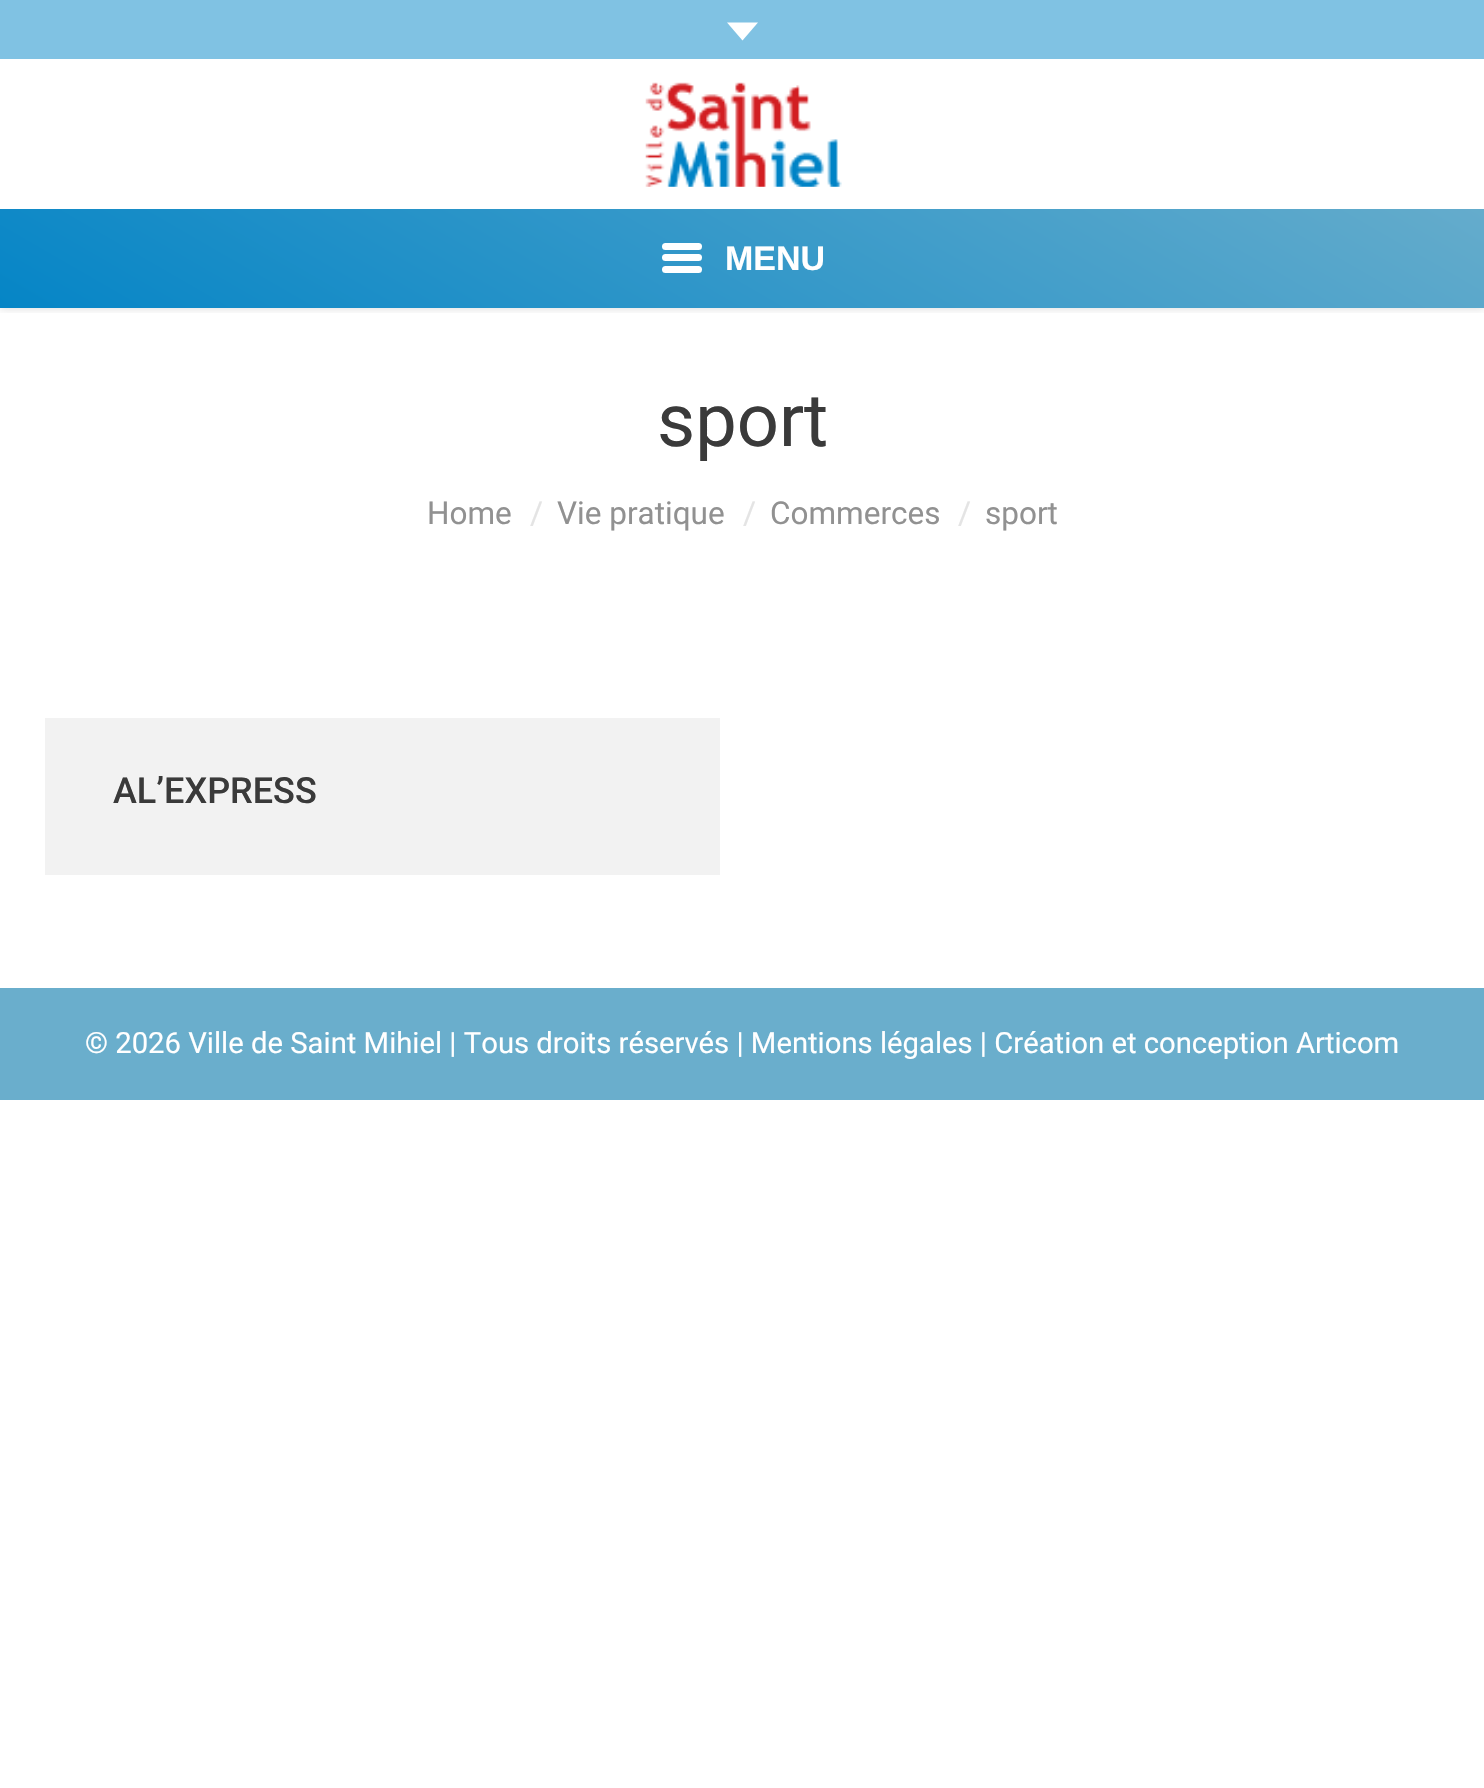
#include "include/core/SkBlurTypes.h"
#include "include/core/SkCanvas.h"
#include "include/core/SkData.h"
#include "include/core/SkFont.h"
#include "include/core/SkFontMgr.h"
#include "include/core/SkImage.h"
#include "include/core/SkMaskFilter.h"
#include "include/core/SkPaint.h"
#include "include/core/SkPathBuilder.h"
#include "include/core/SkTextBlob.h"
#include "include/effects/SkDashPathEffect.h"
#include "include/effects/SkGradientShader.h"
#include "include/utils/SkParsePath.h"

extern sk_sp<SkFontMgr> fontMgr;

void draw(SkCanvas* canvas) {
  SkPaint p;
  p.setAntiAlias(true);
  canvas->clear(SK_ColorWHITE);
  canvas->save();
  canvas->clipRect(SkRect::MakeLTRB(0, 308, 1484, 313));
  p.setColor(SkColorSetARGB(38, 0, 0, 0));
  p.setMaskFilter(SkMaskFilter::MakeBlur(kNormal_SkBlurStyle, 4.5f));
  canvas->drawRect(SkRect::MakeLTRB(0, -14, 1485, 308), p);
  p.setMaskFilter(nullptr);
  canvas->restore();
  p.setColor(SkColorSetRGB(128, 194, 227));
  canvas->drawRect(SkRect::MakeLTRB(0, 0, 1484, 59), p);
  p.setColor(SK_ColorWHITE);
  canvas->drawPath(SkPathBuilder().moveTo(727, 22.5f).lineTo(758, 22.5f).lineTo(742.5f, 40.5f).close().detach(), p);
  canvas->drawImageRect(SkImages::DeferredFromEncodedData(SkData::MakeFromFileName("images/1.png")), SkRect::MakeLTRB(645, 82, 842, 187), SkSamplingOptions());
  {
    const SkColor colors[] = {SkColorSetRGB(0, 131, 198), SkColorSetRGB(106, 174, 204)};
    const float stops[] = {0, 1};
    const SkPoint ends[] = {{513, 656}, {972, -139}};
    p.setShader(SkGradientShader::MakeLinear(ends, colors, stops, 2, SkTileMode::kClamp));
    p.setAlpha(255);
  }
  canvas->drawRect(SkRect::MakeLTRB(0, 209, 1484, 308), p);
  p.setShader(nullptr);
  p.setColor(SK_ColorWHITE);
  canvas->drawRoundRect(SkRect::MakeLTRB(662, 254, 702, 261), 3.5f, 3.5f, p);
  canvas->drawRoundRect(SkRect::MakeLTRB(662, 243, 702, 250), 3.5f, 3.5f, p);
  canvas->drawRoundRect(SkRect::MakeLTRB(662, 266, 702, 273), 3.5f, 3.5f, p);
  p.setColor(SkColorSetRGB(242, 242, 242));
  canvas->drawRect(SkRect::MakeLTRB(45, 718, 720, 875), p);
  p.setColor(SkColorSetRGB(106, 174, 204));
  canvas->drawRect(SkRect::MakeLTRB(0, 988, 1484, 1100), p);
  SkFont font1(fontMgr->matchFamilyStyle("Liberation Sans", SkFontStyle::Bold()), 34);
  font1.setSubpixel(true);
  p.setColor(SK_ColorWHITE);
  canvas->drawString("MENU", 725, 270, font1, p);
  SkFont font2(fontMgr->matchFamilyStyle("Roboto", SkFontStyle::Normal()), 74);
  font2.setSubpixel(true);
  p.setColor(SkColorSetRGB(58, 58, 58));
  canvas->drawString("sport", 657, 446, font2, p);
  SkFont font3(fontMgr->matchFamilyStyle("Roboto", SkFontStyle::Normal()), 31.5f);
  font3.setSubpixel(true);
  p.setColor(SkColorSetRGB(145, 145, 145));
  canvas->drawString("Home", 427, 524, font3, p);
  p.setColor(SkColorSetRGB(228, 228, 228));
  canvas->drawString("/", 530, 524, font3, p);
  p.setColor(SkColorSetRGB(145, 145, 145));
  canvas->drawString("Vie pratique", 557, 524, font3, p);
  p.setColor(SkColorSetRGB(228, 228, 228));
  canvas->drawString("/", 743, 524, font3, p);
  p.setColor(SkColorSetRGB(145, 145, 145));
  canvas->drawString("Commerces", 770, 524, font3, p);
  p.setColor(SkColorSetRGB(228, 228, 228));
  canvas->drawString("/", 958, 524, font3, p);
  p.setColor(SkColorSetRGB(145, 145, 145));
  canvas->drawString("sport", 985, 524, font3, p);
  SkFont font4(fontMgr->matchFamilyStyle("Roboto", SkFontStyle(500, SkFontStyle::kNormal_Width, SkFontStyle::kUpright_Slant)), 36);
  font4.setSubpixel(true);
  p.setColor(SkColorSetRGB(58, 58, 58));
  canvas->drawString("AL’EXPRESS", 113, 803, font4, p);
  SkFont font5(fontMgr->matchFamilyStyle("Roboto", SkFontStyle::Normal()), 29.25f);
  font5.setSubpixel(true);
  p.setColor(SK_ColorWHITE);
  canvas->drawString("© 2026 Ville de Saint Mihiel | Tous droits réservés | Mentions légales | Création et conception Articom", 85, 1053, font5, p);
}
